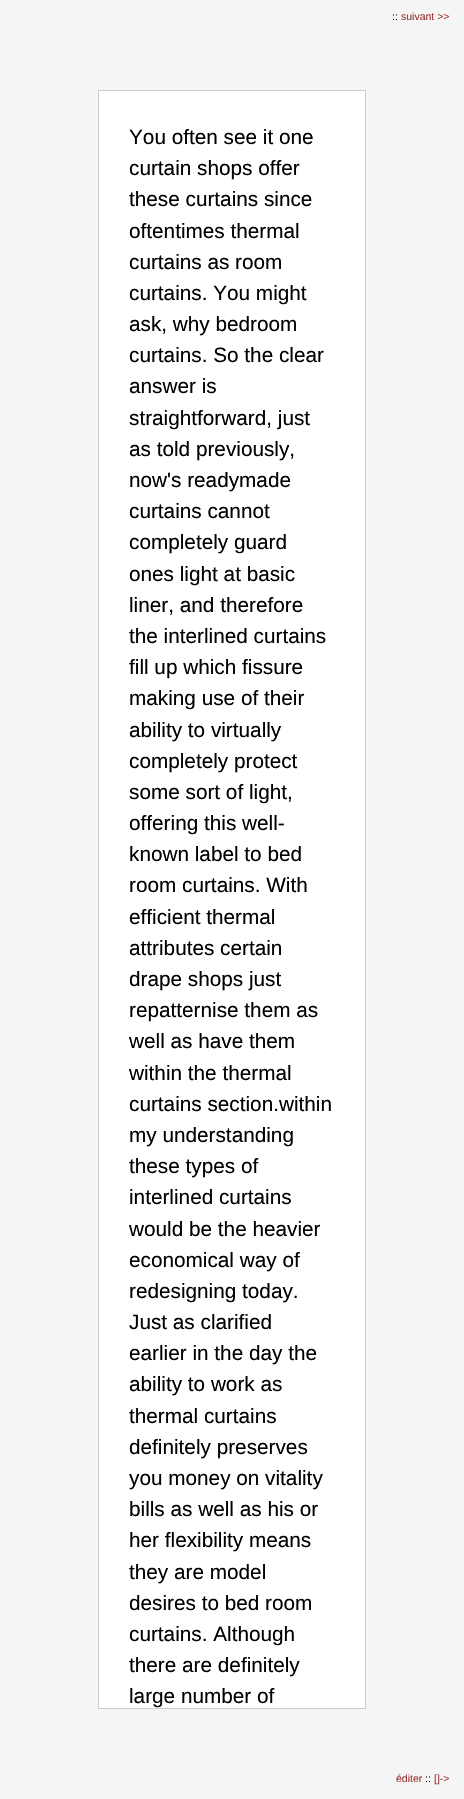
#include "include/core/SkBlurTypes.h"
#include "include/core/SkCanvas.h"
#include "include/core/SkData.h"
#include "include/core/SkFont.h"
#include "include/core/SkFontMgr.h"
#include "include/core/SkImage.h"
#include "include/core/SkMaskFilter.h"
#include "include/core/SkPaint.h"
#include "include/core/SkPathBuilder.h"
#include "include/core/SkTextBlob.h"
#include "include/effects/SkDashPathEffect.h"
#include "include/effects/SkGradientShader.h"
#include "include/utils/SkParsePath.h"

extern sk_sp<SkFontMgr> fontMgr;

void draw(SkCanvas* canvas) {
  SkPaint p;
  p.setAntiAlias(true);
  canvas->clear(SkColorSetRGB(245, 245, 245));
  p.setColor(SK_ColorWHITE);
  canvas->drawRect(SkRect::MakeLTRB(98.5f, 90.5f, 365.5f, 1708.5f), p);
  p.setStyle(SkPaint::kStroke_Style);
  p.setStrokeWidth(1);
  p.setColor(SkColorSetRGB(204, 204, 204));
  canvas->drawRect(SkRect::MakeLTRB(98.5f, 90.5f, 365.5f, 1708.5f), p);
  SkFont font1(fontMgr->matchFamilyStyle("Liberation Sans", SkFontStyle::Normal()), 10.5f);
  font1.setSubpixel(true);
  p.setStyle(SkPaint::kFill_Style);
  p.setColor(SK_ColorBLACK);
  canvas->drawString("::", 392, 20, font1, p);
  p.setColor(SkColorSetRGB(153, 51, 51));
  canvas->drawString("suivant >>", 401, 20, font1, p);
  SkFont font2(fontMgr->matchFamilyStyle("Liberation Sans", SkFontStyle::Normal()), 20.75f);
  font2.setSubpixel(true);
  p.setColor(SK_ColorBLACK);
  canvas->drawString("You often see it one", 129, 144, font2, p);
  canvas->drawString("curtain shops offer", 129, 175, font2, p);
  canvas->drawString("these curtains since", 129, 206, font2, p);
  canvas->drawString("oftentimes thermal", 129, 238, font2, p);
  canvas->drawString("curtains as room", 129, 269, font2, p);
  canvas->drawString("curtains. You might", 129, 300, font2, p);
  canvas->drawString("ask, why bedroom", 129, 331, font2, p);
  canvas->drawString("curtains. So the clear", 129, 362, font2, p);
  canvas->drawString("answer is", 129, 393, font2, p);
  canvas->drawString("straightforward, just", 129, 425, font2, p);
  canvas->drawString("as told previously,", 129, 456, font2, p);
  canvas->drawString("now's readymade", 129, 487, font2, p);
  canvas->drawString("curtains cannot", 129, 518, font2, p);
  canvas->drawString("completely guard", 129, 549, font2, p);
  canvas->drawString("ones light at basic", 129, 581, font2, p);
  canvas->drawString("liner, and therefore", 129, 612, font2, p);
  canvas->drawString("the interlined curtains", 129, 643, font2, p);
  canvas->drawString("fill up which fissure", 129, 674, font2, p);
  canvas->drawString("making use of their", 129, 705, font2, p);
  canvas->drawString("ability to virtually", 129, 737, font2, p);
  canvas->drawString("completely protect", 129, 768, font2, p);
  canvas->drawString("some sort of light,", 129, 799, font2, p);
  canvas->drawString("offering this well-", 129, 830, font2, p);
  canvas->drawString("known label to bed", 129, 861, font2, p);
  canvas->drawString("room curtains. With", 129, 892, font2, p);
  canvas->drawString("efficient thermal", 129, 924, font2, p);
  canvas->drawString("attributes certain", 129, 955, font2, p);
  canvas->drawString("drape shops just", 129, 986, font2, p);
  canvas->drawString("repatternise them as", 129, 1017, font2, p);
  canvas->drawString("well as have them", 129, 1048, font2, p);
  canvas->drawString("within the thermal", 129, 1080, font2, p);
  canvas->drawString("curtains section.within", 129, 1111, font2, p);
  canvas->drawString("my understanding", 129, 1142, font2, p);
  canvas->drawString("these types of", 129, 1173, font2, p);
  canvas->drawString("interlined curtains", 129, 1204, font2, p);
  canvas->drawString("would be the heavier", 129, 1236, font2, p);
  canvas->drawString("economical way of", 129, 1267, font2, p);
  canvas->drawString("redesigning today.", 129, 1298, font2, p);
  canvas->drawString("Just as clarified", 129, 1329, font2, p);
  canvas->drawString("earlier in the day the", 129, 1360, font2, p);
  canvas->drawString("ability to work as", 129, 1391, font2, p);
  canvas->drawString("thermal curtains", 129, 1423, font2, p);
  canvas->drawString("definitely preserves", 129, 1454, font2, p);
  canvas->drawString("you money on vitality", 129, 1485, font2, p);
  canvas->drawString("bills as well as his or", 129, 1516, font2, p);
  canvas->drawString("her flexibility means", 129, 1547, font2, p);
  canvas->drawString("they are model", 129, 1579, font2, p);
  canvas->drawString("desires to bed room", 129, 1610, font2, p);
  canvas->drawString("curtains. Although", 129, 1641, font2, p);
  canvas->drawString("there are definitely", 129, 1672, font2, p);
  canvas->drawString("large number of", 129, 1703, font2, p);
  p.setColor(SkColorSetRGB(153, 51, 51));
  canvas->drawString("éditer", 396, 1782, font1, p);
  p.setColor(SK_ColorBLACK);
  canvas->drawString("::", 425, 1782, font1, p);
  p.setColor(SkColorSetRGB(153, 51, 51));
  canvas->drawString("[]->", 434, 1782, font1, p);
}
